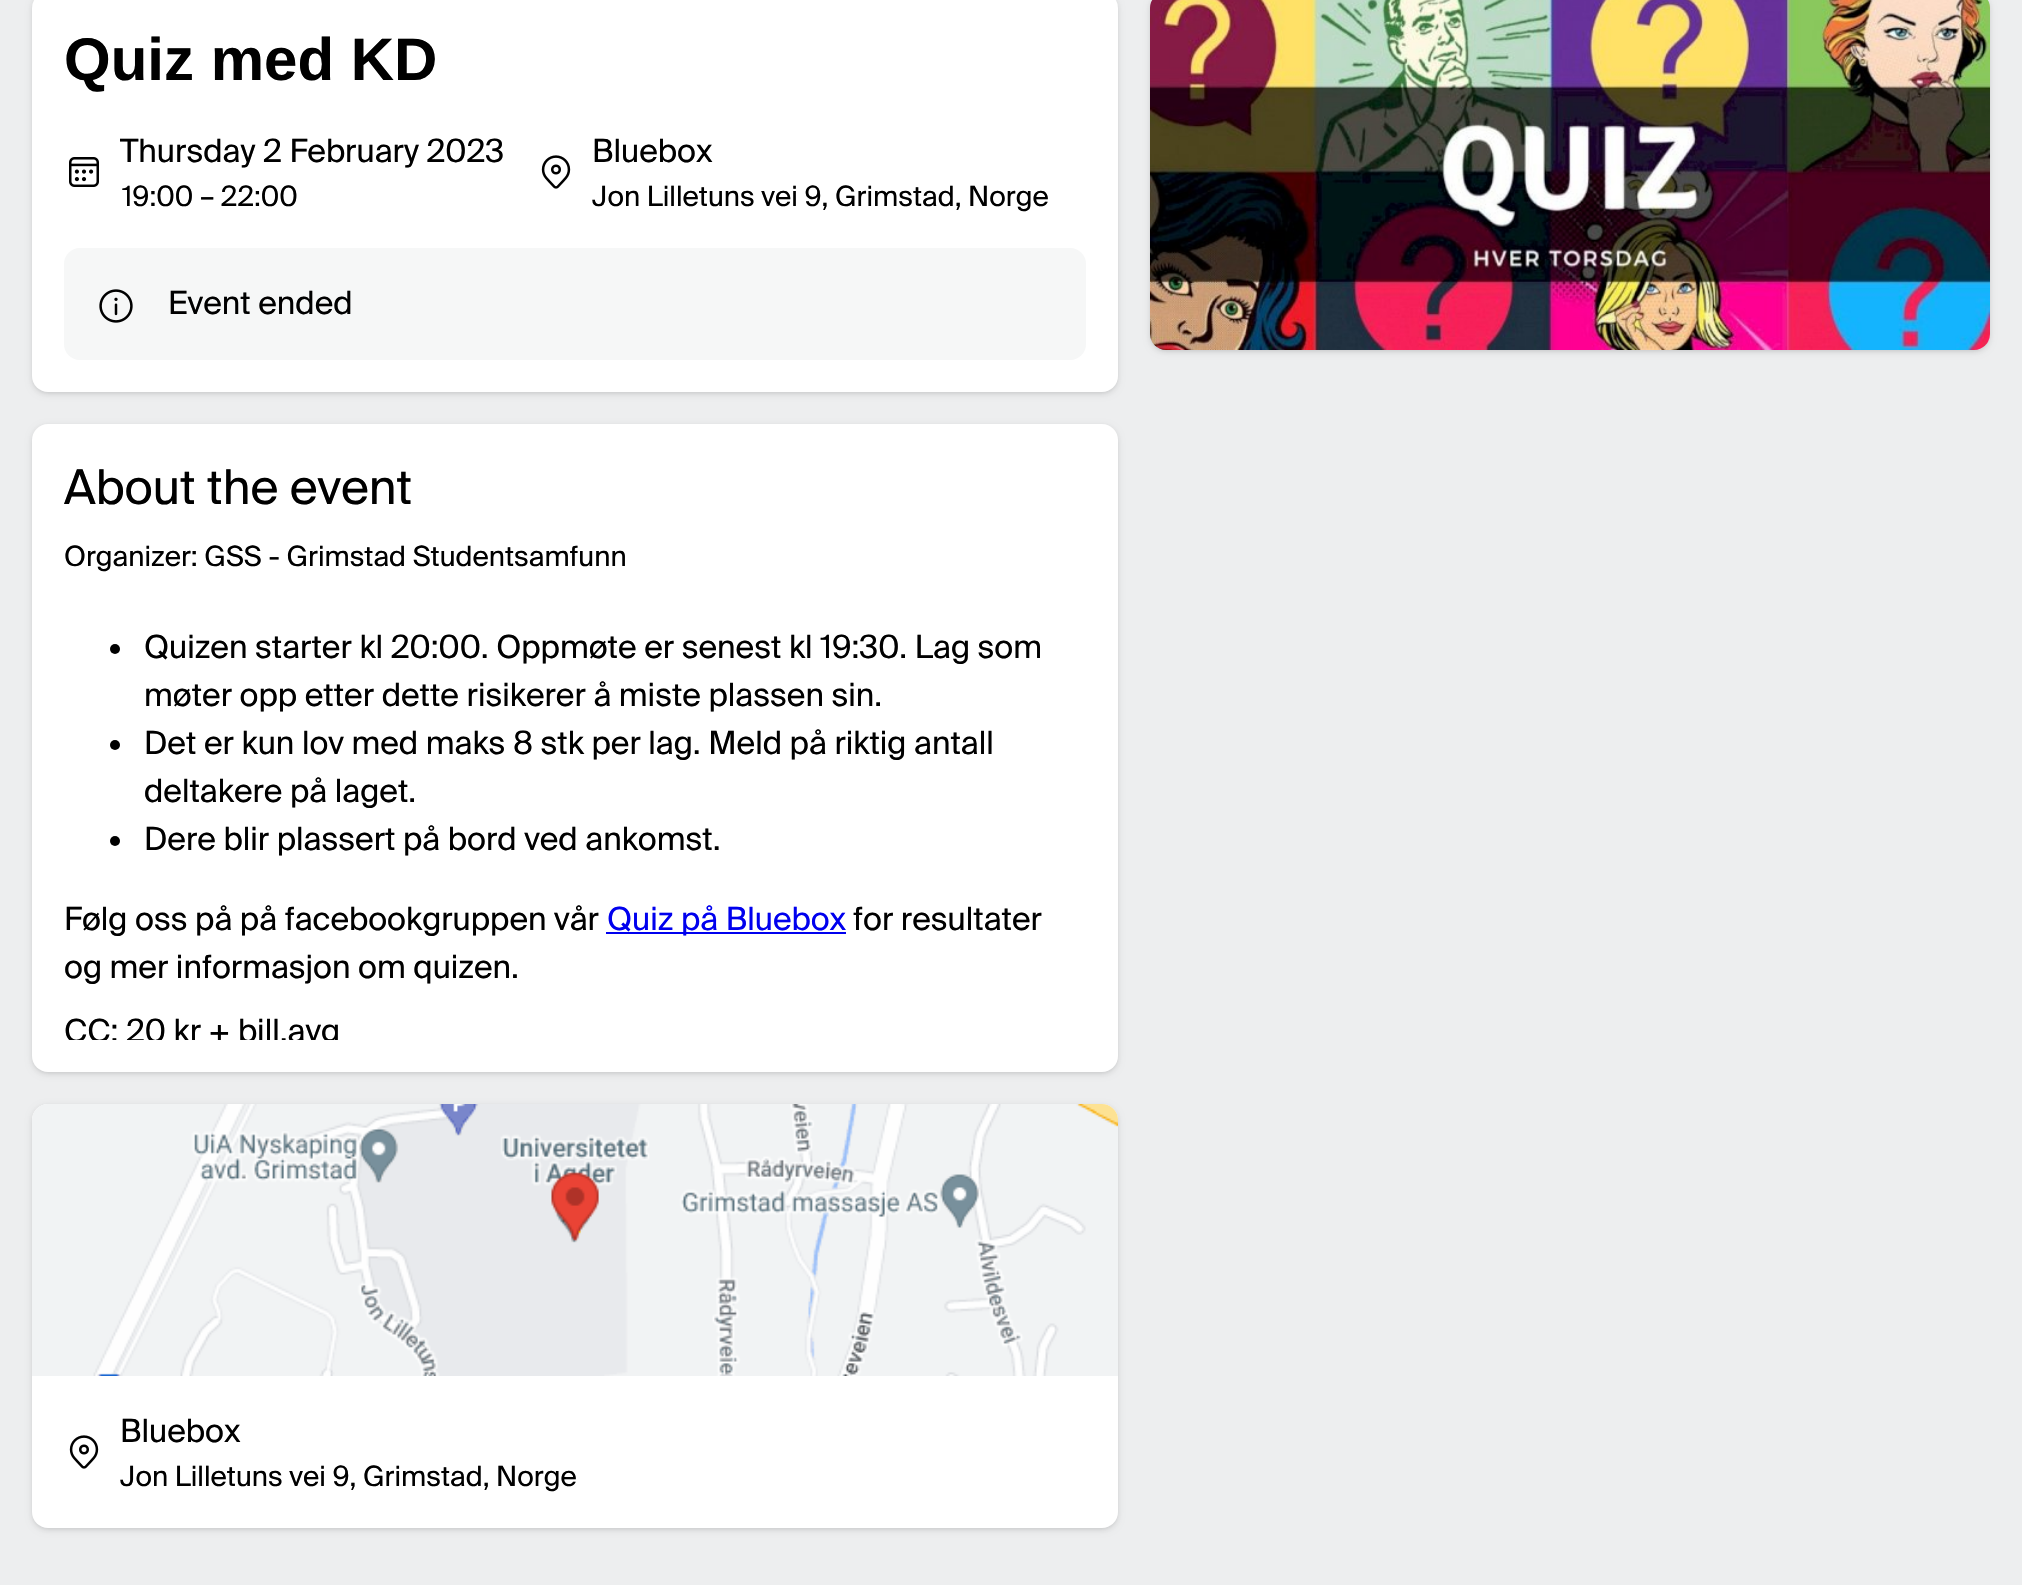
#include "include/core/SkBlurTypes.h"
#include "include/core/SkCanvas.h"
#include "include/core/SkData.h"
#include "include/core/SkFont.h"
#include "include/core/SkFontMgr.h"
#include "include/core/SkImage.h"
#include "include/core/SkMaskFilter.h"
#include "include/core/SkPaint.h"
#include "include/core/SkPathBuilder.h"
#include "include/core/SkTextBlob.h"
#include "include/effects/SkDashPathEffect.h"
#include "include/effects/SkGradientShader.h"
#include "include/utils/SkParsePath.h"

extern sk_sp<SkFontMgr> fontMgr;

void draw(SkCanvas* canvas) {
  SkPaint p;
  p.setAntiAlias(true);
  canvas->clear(SkColorSetRGB(237, 238, 239));
  p.setColor(SkColorSetARGB(26, 0, 0, 0));
  p.setMaskFilter(SkMaskFilter::MakeBlur(kNormal_SkBlurStyle, 2));
  canvas->drawRoundRect(SkRect::MakeLTRB(34, -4, 1116, 392), 14, 14, p);
  p.setMaskFilter(nullptr);
  p.setMaskFilter(SkMaskFilter::MakeBlur(kNormal_SkBlurStyle, 3));
  canvas->drawRoundRect(SkRect::MakeLTRB(32, -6, 1118, 394), 16, 16, p);
  p.setMaskFilter(nullptr);
  p.setColor(SK_ColorWHITE);
  canvas->drawRoundRect(SkRect::MakeLTRB(32, -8, 1118, 392), 16, 16, p);
  canvas->drawImageRect(SkImages::DeferredFromEncodedData(SkData::MakeFromFileName("images/1.png")), SkRect::MakeLTRB(69, 157, 99, 187), SkSamplingOptions());
  canvas->drawImageRect(SkImages::DeferredFromEncodedData(SkData::MakeFromFileName("images/2.png")), SkRect::MakeLTRB(541, 155, 571, 189), SkSamplingOptions());
  p.setColor(SkColorSetRGB(246, 247, 247));
  canvas->drawRoundRect(SkRect::MakeLTRB(64, 248, 1086, 360), 16, 16, p);
  canvas->drawImageRect(SkImages::DeferredFromEncodedData(SkData::MakeFromFileName("images/3.png")), SkRect::MakeLTRB(99, 289, 133, 323), SkSamplingOptions());
  p.setColor(SkColorSetARGB(26, 0, 0, 0));
  p.setMaskFilter(SkMaskFilter::MakeBlur(kNormal_SkBlurStyle, 2));
  canvas->drawRoundRect(SkRect::MakeLTRB(34, 428, 1116, 1072), 14, 14, p);
  p.setMaskFilter(nullptr);
  p.setMaskFilter(SkMaskFilter::MakeBlur(kNormal_SkBlurStyle, 3));
  canvas->drawRoundRect(SkRect::MakeLTRB(32, 426, 1118, 1074), 16, 16, p);
  p.setMaskFilter(nullptr);
  p.setColor(SK_ColorWHITE);
  canvas->drawRoundRect(SkRect::MakeLTRB(32, 424, 1118, 1072), 16, 16, p);
  p.setColor(SK_ColorBLACK);
  canvas->drawCircle(115, 649, 5, p);
  canvas->drawCircle(115, 745, 5, p);
  canvas->drawCircle(115, 841, 5, p);
  p.setColor(SkColorSetRGB(0, 0, 238));
  canvas->drawRect(SkRect::MakeLTRB(606, 932, 846, 934), p);
  p.setColor(SkColorSetARGB(26, 0, 0, 0));
  p.setMaskFilter(SkMaskFilter::MakeBlur(kNormal_SkBlurStyle, 2));
  canvas->drawRoundRect(SkRect::MakeLTRB(34, 1108, 1116, 1528), 14, 14, p);
  p.setMaskFilter(nullptr);
  p.setMaskFilter(SkMaskFilter::MakeBlur(kNormal_SkBlurStyle, 3));
  canvas->drawRoundRect(SkRect::MakeLTRB(32, 1106, 1118, 1530), 16, 16, p);
  p.setMaskFilter(nullptr);
  p.setColor(SK_ColorWHITE);
  canvas->drawRoundRect(SkRect::MakeLTRB(32, 1104, 1118, 1528), 16, 16, p);
  canvas->drawImageRect(SkImages::DeferredFromEncodedData(SkData::MakeFromFileName("images/4.png")), SkRect::MakeLTRB(32, 1104, 1118, 1376), SkSamplingOptions());
  canvas->drawImageRect(SkImages::DeferredFromEncodedData(SkData::MakeFromFileName("images/2.png")), SkRect::MakeLTRB(69, 1435, 99, 1469), SkSamplingOptions());
  p.setColor(SkColorSetARGB(26, 0, 0, 0));
  p.setMaskFilter(SkMaskFilter::MakeBlur(kNormal_SkBlurStyle, 2));
  canvas->drawRoundRect(SkRect::MakeLTRB(1152, -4, 1988, 350), 14, 14, p);
  p.setMaskFilter(nullptr);
  p.setMaskFilter(SkMaskFilter::MakeBlur(kNormal_SkBlurStyle, 3));
  canvas->drawRoundRect(SkRect::MakeLTRB(1150, -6, 1990, 352), 16, 16, p);
  p.setMaskFilter(nullptr);
  canvas->drawImageRect(SkImages::DeferredFromEncodedData(SkData::MakeFromFileName("images/5.png")), SkRect::MakeLTRB(1150, 0, 1990, 350), SkSamplingOptions());
  SkFont font1(fontMgr->matchFamilyStyle("Liberation Sans", SkFontStyle::Bold()), 60);
  font1.setSubpixel(true);
  p.setColor(SK_ColorBLACK);
  canvas->drawString("Quiz med KD", 64, 80, font1, p);
  SkFont font2(fontMgr->matchFamilyStyle("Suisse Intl", SkFontStyle::Normal()), 32);
  font2.setSubpixel(true);
  canvas->drawString("Thursday 2 February 2023", 120, 162, font2, p);
  SkFont font3(fontMgr->matchFamilyStyle("Suisse Intl", SkFontStyle::Normal()), 28);
  font3.setSubpixel(true);
  canvas->drawString("19:00 – 22:00", 122, 206, font3, p);
  canvas->drawString("Bluebox", 592, 162, font2, p);
  canvas->drawString("Jon Lilletuns vei 9, Grimstad, Norge", 592, 206, font3, p);
  canvas->drawString("Event ended", 168, 314, font2, p);
  SkFont font4(fontMgr->matchFamilyStyle("Suisse Intl", SkFontStyle::Normal()), 48);
  font4.setSubpixel(true);
  canvas->drawString("About the event", 64, 504, font4, p);
  canvas->drawString("Organizer: GSS - Grimstad Studentsamfunn", 64, 566, font3, p);
  canvas->drawString("Quizen starter kl 20:00. Oppmøte er senest kl 19:30. Lag som", 144, 658, font2, p);
  canvas->drawString("møter opp etter dette risikerer å miste plassen sin.", 144, 706, font2, p);
  canvas->drawString("Det er kun lov med maks 8 stk per lag. Meld på riktig antall", 144, 754, font2, p);
  canvas->drawString("deltakere på laget.", 144, 802, font2, p);
  canvas->drawString("Dere blir plassert på bord ved ankomst.", 144, 850, font2, p);
  canvas->drawString("Følg oss på på facebookgruppen vår", 64, 930, font2, p);
  p.setColor(SkColorSetRGB(0, 0, 238));
  canvas->drawString("Quiz på Bluebox", 607, 930, font2, p);
  p.setColor(SK_ColorBLACK);
  canvas->drawString("for resultater", 853, 930, font2, p);
  canvas->drawString("og mer informasjon om quizen.", 64, 978, font2, p);
  canvas->save();
  canvas->clipRect(SkRect::MakeLTRB(64, 592, 1086, 1040));
  canvas->drawString("CC: 20 kr + bill.avg", 64, 1042, font2, p);
  canvas->restore();
  canvas->drawString("Bluebox", 120, 1442, font2, p);
  canvas->drawString("Jon Lilletuns vei 9, Grimstad, Norge", 120, 1486, font3, p);
}
